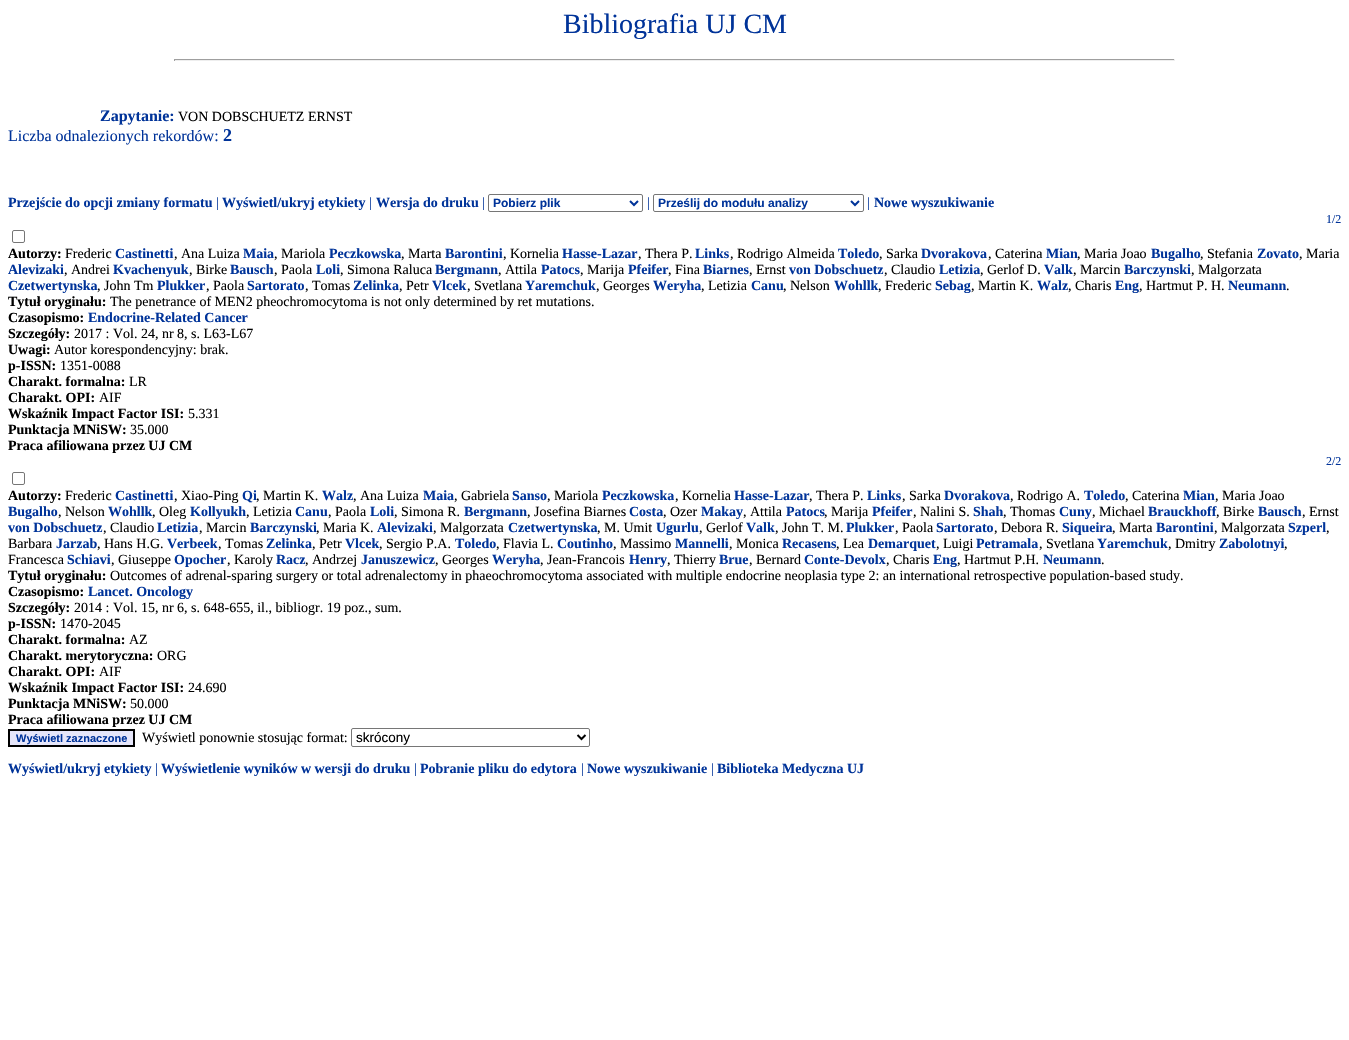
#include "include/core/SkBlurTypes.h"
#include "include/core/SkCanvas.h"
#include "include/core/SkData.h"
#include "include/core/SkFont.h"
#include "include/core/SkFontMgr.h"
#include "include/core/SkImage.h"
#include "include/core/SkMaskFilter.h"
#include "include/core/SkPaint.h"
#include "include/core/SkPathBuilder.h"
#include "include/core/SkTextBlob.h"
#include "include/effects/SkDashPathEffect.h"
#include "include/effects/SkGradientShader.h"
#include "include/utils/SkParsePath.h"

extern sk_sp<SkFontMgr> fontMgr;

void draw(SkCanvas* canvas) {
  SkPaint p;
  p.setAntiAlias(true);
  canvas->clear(SK_ColorWHITE);
  p.setColor(SkColorSetRGB(159, 159, 159));
  canvas->drawRect(SkRect::MakeLTRB(174, 59, 1175, 60), p);
  p.setColor(SkColorSetRGB(238, 238, 238));
  canvas->drawRect(SkRect::MakeLTRB(1174, 59, 1175, 61), p);
  canvas->drawRect(SkRect::MakeLTRB(174, 60, 1175, 61), p);
  p.setColor(SkColorSetRGB(159, 159, 159));
  canvas->drawRect(SkRect::MakeLTRB(174, 59, 175, 61), p);
  p.setStyle(SkPaint::kStroke_Style);
  p.setStrokeWidth(1);
  p.setColor(SkColorSetRGB(118, 118, 118));
  canvas->drawRoundRect(SkRect::MakeLTRB(488.5f, 194.5f, 642.5f, 211.5f), 1.5f, 1.5f, p);
  p.setStrokeWidth(2);
  p.setColor(SkColorSetRGB(0, 51, 153));
  canvas->drawPath(SkPathBuilder().moveTo(630, 201).lineTo(634, 205).lineTo(638, 201).detach(), p);
  p.setStrokeWidth(1);
  p.setColor(SkColorSetRGB(118, 118, 118));
  canvas->drawRoundRect(SkRect::MakeLTRB(653.5f, 194.5f, 863.5f, 211.5f), 1.5f, 1.5f, p);
  p.setStrokeWidth(2);
  p.setColor(SkColorSetRGB(0, 51, 153));
  canvas->drawPath(SkPathBuilder().moveTo(851, 201).lineTo(855, 205).lineTo(859, 201).detach(), p);
  p.setStrokeWidth(1);
  p.setColor(SkColorSetRGB(118, 118, 118));
  canvas->drawRoundRect(SkRect::MakeLTRB(12.5f, 230.5f, 24.5f, 242.5f), 1.5f, 1.5f, p);
  canvas->drawRoundRect(SkRect::MakeLTRB(12.5f, 472.5f, 24.5f, 484.5f), 1.5f, 1.5f, p);
  p.setStyle(SkPaint::kFill_Style);
  p.setColor(SkColorSetRGB(230, 230, 250));
  canvas->drawRect(SkRect::MakeLTRB(9, 730, 134, 746), p);
  p.setStyle(SkPaint::kStroke_Style);
  p.setStrokeWidth(2);
  p.setColor(SK_ColorBLACK);
  canvas->drawRect(SkRect::MakeLTRB(9, 730, 134, 746), p);
  p.setStrokeWidth(1);
  p.setColor(SkColorSetRGB(118, 118, 118));
  canvas->drawRoundRect(SkRect::MakeLTRB(351.5f, 728.5f, 589.5f, 746.5f), 1.5f, 1.5f, p);
  p.setStrokeWidth(2);
  p.setColor(SK_ColorBLACK);
  canvas->drawPath(SkPathBuilder().moveTo(577.5f, 735).lineTo(581.5f, 739).lineTo(585.5f, 735).detach(), p);
  SkFont font1(fontMgr->matchFamilyStyle("Liberation Serif", SkFontStyle::Normal()), 28);
  font1.setSubpixel(true);
  p.setStyle(SkPaint::kFill_Style);
  p.setColor(SkColorSetRGB(0, 51, 153));
  canvas->drawString("Bibliografia UJ CM", 563, 33, font1, p);
  SkFont font2(fontMgr->matchFamilyStyle("Liberation Serif", SkFontStyle::Bold()), 16);
  font2.setSubpixel(true);
  canvas->drawString("Zapytanie:", 100, 121, font2, p);
  SkFont font3(fontMgr->matchFamilyStyle("Liberation Serif", SkFontStyle::Normal()), 14);
  font3.setSubpixel(true);
  p.setColor(SK_ColorBLACK);
  canvas->drawString("VON DOBSCHUETZ ERNST", 178, 121, font3, p);
  SkFont font4(fontMgr->matchFamilyStyle("Liberation Serif", SkFontStyle::Normal()), 16);
  font4.setSubpixel(true);
  p.setColor(SkColorSetRGB(0, 51, 153));
  canvas->drawString("Liczba odnalezionych rekordów:", 8, 141, font4, p);
  SkFont font5(fontMgr->matchFamilyStyle("Liberation Serif", SkFontStyle::Bold()), 18);
  font5.setSubpixel(true);
  canvas->drawString("2", 223, 141, font5, p);
  SkFont font6(fontMgr->matchFamilyStyle("Liberation Serif", SkFontStyle::Bold()), 14);
  font6.setSubpixel(true);
  canvas->drawString("Przejście do opcji zmiany formatu", 8, 207, font6, p);
  canvas->drawString("|", 216, 207, font3, p);
  canvas->drawString("Wyświetl/ukryj etykiety", 222, 207, font6, p);
  canvas->drawString("|", 369, 207, font3, p);
  canvas->drawString("Wersja do druku", 376, 207, font6, p);
  canvas->drawString("|", 482, 207, font3, p);
  SkFont font7(fontMgr->matchFamilyStyle("Liberation Sans", SkFontStyle::Bold()), 12);
  font7.setSubpixel(true);
  canvas->drawString("Pobierz plik", 493, 207, font7, p);
  canvas->drawString("|", 647, 207, font3, p);
  canvas->drawString("Prześlij do modułu analizy", 658, 207, font7, p);
  canvas->drawString("|", 867, 207, font3, p);
  canvas->drawString("Nowe wyszukiwanie", 874, 207, font6, p);
  SkFont font8(fontMgr->matchFamilyStyle("Liberation Serif", SkFontStyle::Normal()), 12);
  font8.setSubpixel(true);
  canvas->drawString("1/2", 1326, 223, font8, p);
  p.setColor(SK_ColorBLACK);
  canvas->drawString("Autorzy:", 8, 258, font6, p);
  canvas->drawString("Frederic", 65, 258, font3, p);
  p.setColor(SkColorSetRGB(0, 51, 153));
  canvas->drawString("Castinetti", 115, 258, font6, p);
  p.setColor(SK_ColorBLACK);
  canvas->drawString(", Ana Luiza", 174, 258, font3, p);
  p.setColor(SkColorSetRGB(0, 51, 153));
  canvas->drawString("Maia", 243, 258, font6, p);
  p.setColor(SK_ColorBLACK);
  canvas->drawString(", Mariola", 274, 258, font3, p);
  p.setColor(SkColorSetRGB(0, 51, 153));
  canvas->drawString("Peczkowska", 329, 258, font6, p);
  p.setColor(SK_ColorBLACK);
  canvas->drawString(", Marta", 401, 258, font3, p);
  p.setColor(SkColorSetRGB(0, 51, 153));
  canvas->drawString("Barontini", 445, 258, font6, p);
  p.setColor(SK_ColorBLACK);
  canvas->drawString(", Kornelia", 503, 258, font3, p);
  p.setColor(SkColorSetRGB(0, 51, 153));
  canvas->drawString("Hasse-Lazar", 562, 258, font6, p);
  p.setColor(SK_ColorBLACK);
  canvas->drawString(", Thera P.", 638, 258, font3, p);
  p.setColor(SkColorSetRGB(0, 51, 153));
  canvas->drawString("Links", 695, 258, font6, p);
  p.setColor(SK_ColorBLACK);
  canvas->drawString(", Rodrigo Almeida", 730, 258, font3, p);
  p.setColor(SkColorSetRGB(0, 51, 153));
  canvas->drawString("Toledo", 838, 258, font6, p);
  p.setColor(SK_ColorBLACK);
  canvas->drawString(", Sarka", 879, 258, font3, p);
  p.setColor(SkColorSetRGB(0, 51, 153));
  canvas->drawString("Dvorakova", 921, 258, font6, p);
  p.setColor(SK_ColorBLACK);
  canvas->drawString(", Caterina", 988, 258, font3, p);
  p.setColor(SkColorSetRGB(0, 51, 153));
  canvas->drawString("Mian", 1046, 258, font6, p);
  p.setColor(SK_ColorBLACK);
  canvas->drawString(", Maria Joao", 1077, 258, font3, p);
  p.setColor(SkColorSetRGB(0, 51, 153));
  canvas->drawString("Bugalho", 1151, 258, font6, p);
  p.setColor(SK_ColorBLACK);
  canvas->drawString(", Stefania", 1200, 258, font3, p);
  p.setColor(SkColorSetRGB(0, 51, 153));
  canvas->drawString("Zovato", 1257, 258, font6, p);
  p.setColor(SK_ColorBLACK);
  canvas->drawString(", Maria", 1299, 258, font3, p);
  p.setColor(SkColorSetRGB(0, 51, 153));
  canvas->drawString("Alevizaki", 8, 274, font6, p);
  p.setColor(SK_ColorBLACK);
  canvas->drawString(", Andrei", 64, 274, font3, p);
  p.setColor(SkColorSetRGB(0, 51, 153));
  canvas->drawString("Kvachenyuk", 113, 274, font6, p);
  p.setColor(SK_ColorBLACK);
  canvas->drawString(", Birke", 189, 274, font3, p);
  p.setColor(SkColorSetRGB(0, 51, 153));
  canvas->drawString("Bausch", 230, 274, font6, p);
  p.setColor(SK_ColorBLACK);
  canvas->drawString(", Paola", 274, 274, font3, p);
  p.setColor(SkColorSetRGB(0, 51, 153));
  canvas->drawString("Loli", 316, 274, font6, p);
  p.setColor(SK_ColorBLACK);
  canvas->drawString(", Simona Raluca", 340, 274, font3, p);
  p.setColor(SkColorSetRGB(0, 51, 153));
  canvas->drawString("Bergmann", 435, 274, font6, p);
  p.setColor(SK_ColorBLACK);
  canvas->drawString(", Attila", 498, 274, font3, p);
  p.setColor(SkColorSetRGB(0, 51, 153));
  canvas->drawString("Patocs", 541, 274, font6, p);
  p.setColor(SK_ColorBLACK);
  canvas->drawString(", Marija", 580, 274, font3, p);
  p.setColor(SkColorSetRGB(0, 51, 153));
  canvas->drawString("Pfeifer", 628, 274, font6, p);
  p.setColor(SK_ColorBLACK);
  canvas->drawString(", Fina", 668, 274, font3, p);
  p.setColor(SkColorSetRGB(0, 51, 153));
  canvas->drawString("Biarnes", 703, 274, font6, p);
  p.setColor(SK_ColorBLACK);
  canvas->drawString(", Ernst", 749, 274, font3, p);
  p.setColor(SkColorSetRGB(0, 51, 153));
  canvas->drawString("von Dobschuetz", 789, 274, font6, p);
  p.setColor(SK_ColorBLACK);
  canvas->drawString(", Claudio", 884, 274, font3, p);
  p.setColor(SkColorSetRGB(0, 51, 153));
  canvas->drawString("Letizia", 939, 274, font6, p);
  p.setColor(SK_ColorBLACK);
  canvas->drawString(", Gerlof D.", 980, 274, font3, p);
  p.setColor(SkColorSetRGB(0, 51, 153));
  canvas->drawString("Valk", 1044, 274, font6, p);
  p.setColor(SK_ColorBLACK);
  canvas->drawString(", Marcin", 1073, 274, font3, p);
  p.setColor(SkColorSetRGB(0, 51, 153));
  canvas->drawString("Barczynski", 1124, 274, font6, p);
  p.setColor(SK_ColorBLACK);
  canvas->drawString(", Malgorzata", 1191, 274, font3, p);
  p.setColor(SkColorSetRGB(0, 51, 153));
  canvas->drawString("Czetwertynska", 8, 290, font6, p);
  p.setColor(SK_ColorBLACK);
  canvas->drawString(", John Tm", 97, 290, font3, p);
  p.setColor(SkColorSetRGB(0, 51, 153));
  canvas->drawString("Plukker", 157, 290, font6, p);
  p.setColor(SK_ColorBLACK);
  canvas->drawString(", Paola", 206, 290, font3, p);
  p.setColor(SkColorSetRGB(0, 51, 153));
  canvas->drawString("Sartorato", 247, 290, font6, p);
  p.setColor(SK_ColorBLACK);
  canvas->drawString(", Tomas", 305, 290, font3, p);
  p.setColor(SkColorSetRGB(0, 51, 153));
  canvas->drawString("Zelinka", 353, 290, font6, p);
  p.setColor(SK_ColorBLACK);
  canvas->drawString(", Petr", 399, 290, font3, p);
  p.setColor(SkColorSetRGB(0, 51, 153));
  canvas->drawString("Vlcek", 432, 290, font6, p);
  p.setColor(SK_ColorBLACK);
  canvas->drawString(", Svetlana", 467, 290, font3, p);
  p.setColor(SkColorSetRGB(0, 51, 153));
  canvas->drawString("Yaremchuk", 525, 290, font6, p);
  p.setColor(SK_ColorBLACK);
  canvas->drawString(", Georges", 596, 290, font3, p);
  p.setColor(SkColorSetRGB(0, 51, 153));
  canvas->drawString("Weryha", 653, 290, font6, p);
  p.setColor(SK_ColorBLACK);
  canvas->drawString(", Letizia", 701, 290, font3, p);
  p.setColor(SkColorSetRGB(0, 51, 153));
  canvas->drawString("Canu", 751, 290, font6, p);
  p.setColor(SK_ColorBLACK);
  canvas->drawString(", Nelson", 783, 290, font3, p);
  p.setColor(SkColorSetRGB(0, 51, 153));
  canvas->drawString("Wohllk", 834, 290, font6, p);
  p.setColor(SK_ColorBLACK);
  canvas->drawString(", Frederic", 878, 290, font3, p);
  p.setColor(SkColorSetRGB(0, 51, 153));
  canvas->drawString("Sebag", 935, 290, font6, p);
  p.setColor(SK_ColorBLACK);
  canvas->drawString(", Martin K.", 971, 290, font3, p);
  p.setColor(SkColorSetRGB(0, 51, 153));
  canvas->drawString("Walz", 1037, 290, font6, p);
  p.setColor(SK_ColorBLACK);
  canvas->drawString(", Charis", 1068, 290, font3, p);
  p.setColor(SkColorSetRGB(0, 51, 153));
  canvas->drawString("Eng", 1115, 290, font6, p);
  p.setColor(SK_ColorBLACK);
  canvas->drawString(", Hartmut P. H.", 1139, 290, font3, p);
  p.setColor(SkColorSetRGB(0, 51, 153));
  canvas->drawString("Neumann", 1228, 290, font6, p);
  p.setColor(SK_ColorBLACK);
  canvas->drawString(".", 1286, 290, font3, p);
  canvas->drawString("Tytuł oryginału:", 8, 306, font6, p);
  canvas->drawString("The penetrance of MEN2 pheochromocytoma is not only determined by ret mutations.", 110, 306, font3, p);
  canvas->drawString("Czasopismo:", 8, 322, font6, p);
  p.setColor(SkColorSetRGB(0, 51, 153));
  canvas->drawString("Endocrine-Related Cancer", 88, 322, font6, p);
  p.setColor(SK_ColorBLACK);
  canvas->drawString("Szczegóły:", 8, 338, font6, p);
  canvas->drawString("2017 : Vol. 24, nr 8, s. L63-L67", 74, 338, font3, p);
  canvas->drawString("Uwagi:", 8, 354, font6, p);
  canvas->drawString("Autor korespondencyjny: brak.", 54, 354, font3, p);
  canvas->drawString("p-ISSN:", 8, 370, font6, p);
  canvas->drawString("1351-0088", 60, 370, font3, p);
  canvas->drawString("Charakt. formalna:", 8, 386, font6, p);
  canvas->drawString("LR", 129, 386, font3, p);
  canvas->drawString("Charakt. OPI:", 8, 402, font6, p);
  canvas->drawString("AIF", 99, 402, font3, p);
  canvas->drawString("Wskaźnik Impact Factor ISI:", 8, 418, font6, p);
  canvas->drawString("5.331", 188, 418, font3, p);
  canvas->drawString("Punktacja MNiSW:", 8, 434, font6, p);
  canvas->drawString("35.000", 130, 434, font3, p);
  canvas->drawString("Praca afiliowana przez UJ CM", 8, 450, font6, p);
  p.setColor(SkColorSetRGB(0, 51, 153));
  canvas->drawString("2/2", 1326, 465, font8, p);
  p.setColor(SK_ColorBLACK);
  canvas->drawString("Autorzy:", 8, 500, font6, p);
  canvas->drawString("Frederic", 65, 500, font3, p);
  p.setColor(SkColorSetRGB(0, 51, 153));
  canvas->drawString("Castinetti", 115, 500, font6, p);
  p.setColor(SK_ColorBLACK);
  canvas->drawString(", Xiao-Ping", 174, 500, font3, p);
  p.setColor(SkColorSetRGB(0, 51, 153));
  canvas->drawString("Qi", 242, 500, font6, p);
  p.setColor(SK_ColorBLACK);
  canvas->drawString(", Martin K.", 256, 500, font3, p);
  p.setColor(SkColorSetRGB(0, 51, 153));
  canvas->drawString("Walz", 322, 500, font6, p);
  p.setColor(SK_ColorBLACK);
  canvas->drawString(", Ana Luiza", 353, 500, font3, p);
  p.setColor(SkColorSetRGB(0, 51, 153));
  canvas->drawString("Maia", 423, 500, font6, p);
  p.setColor(SK_ColorBLACK);
  canvas->drawString(", Gabriela", 454, 500, font3, p);
  p.setColor(SkColorSetRGB(0, 51, 153));
  canvas->drawString("Sanso", 512, 500, font6, p);
  p.setColor(SK_ColorBLACK);
  canvas->drawString(", Mariola", 547, 500, font3, p);
  p.setColor(SkColorSetRGB(0, 51, 153));
  canvas->drawString("Peczkowska", 602, 500, font6, p);
  p.setColor(SK_ColorBLACK);
  canvas->drawString(", Kornelia", 675, 500, font3, p);
  p.setColor(SkColorSetRGB(0, 51, 153));
  canvas->drawString("Hasse-Lazar", 734, 500, font6, p);
  p.setColor(SK_ColorBLACK);
  canvas->drawString(", Thera P.", 809, 500, font3, p);
  p.setColor(SkColorSetRGB(0, 51, 153));
  canvas->drawString("Links", 867, 500, font6, p);
  p.setColor(SK_ColorBLACK);
  canvas->drawString(", Sarka", 902, 500, font3, p);
  p.setColor(SkColorSetRGB(0, 51, 153));
  canvas->drawString("Dvorakova", 944, 500, font6, p);
  p.setColor(SK_ColorBLACK);
  canvas->drawString(", Rodrigo A.", 1010, 500, font3, p);
  p.setColor(SkColorSetRGB(0, 51, 153));
  canvas->drawString("Toledo", 1084, 500, font6, p);
  p.setColor(SK_ColorBLACK);
  canvas->drawString(", Caterina", 1125, 500, font3, p);
  p.setColor(SkColorSetRGB(0, 51, 153));
  canvas->drawString("Mian", 1183, 500, font6, p);
  p.setColor(SK_ColorBLACK);
  canvas->drawString(", Maria Joao", 1215, 500, font3, p);
  p.setColor(SkColorSetRGB(0, 51, 153));
  canvas->drawString("Bugalho", 8, 516, font6, p);
  p.setColor(SK_ColorBLACK);
  canvas->drawString(", Nelson", 58, 516, font3, p);
  p.setColor(SkColorSetRGB(0, 51, 153));
  canvas->drawString("Wohllk", 108, 516, font6, p);
  p.setColor(SK_ColorBLACK);
  canvas->drawString(", Oleg", 152, 516, font3, p);
  p.setColor(SkColorSetRGB(0, 51, 153));
  canvas->drawString("Kollyukh", 190, 516, font6, p);
  p.setColor(SK_ColorBLACK);
  canvas->drawString(", Letizia", 246, 516, font3, p);
  p.setColor(SkColorSetRGB(0, 51, 153));
  canvas->drawString("Canu", 295, 516, font6, p);
  p.setColor(SK_ColorBLACK);
  canvas->drawString(", Paola", 328, 516, font3, p);
  p.setColor(SkColorSetRGB(0, 51, 153));
  canvas->drawString("Loli", 370, 516, font6, p);
  p.setColor(SK_ColorBLACK);
  canvas->drawString(", Simona R.", 394, 516, font3, p);
  p.setColor(SkColorSetRGB(0, 51, 153));
  canvas->drawString("Bergmann", 464, 516, font6, p);
  p.setColor(SK_ColorBLACK);
  canvas->drawString(", Josefina Biarnes", 527, 516, font3, p);
  p.setColor(SkColorSetRGB(0, 51, 153));
  canvas->drawString("Costa", 629, 516, font6, p);
  p.setColor(SK_ColorBLACK);
  canvas->drawString(", Ozer", 663, 516, font3, p);
  p.setColor(SkColorSetRGB(0, 51, 153));
  canvas->drawString("Makay", 701, 516, font6, p);
  p.setColor(SK_ColorBLACK);
  canvas->drawString(", Attila", 743, 516, font3, p);
  p.setColor(SkColorSetRGB(0, 51, 153));
  canvas->drawString("Patocs", 786, 516, font6, p);
  p.setColor(SK_ColorBLACK);
  canvas->drawString(", Marija", 824, 516, font3, p);
  p.setColor(SkColorSetRGB(0, 51, 153));
  canvas->drawString("Pfeifer", 872, 516, font6, p);
  p.setColor(SK_ColorBLACK);
  canvas->drawString(", Nalini S.", 913, 516, font3, p);
  p.setColor(SkColorSetRGB(0, 51, 153));
  canvas->drawString("Shah", 973, 516, font6, p);
  p.setColor(SK_ColorBLACK);
  canvas->drawString(", Thomas", 1003, 516, font3, p);
  p.setColor(SkColorSetRGB(0, 51, 153));
  canvas->drawString("Cuny", 1059, 516, font6, p);
  p.setColor(SK_ColorBLACK);
  canvas->drawString(", Michael", 1092, 516, font3, p);
  p.setColor(SkColorSetRGB(0, 51, 153));
  canvas->drawString("Brauckhoff", 1148, 516, font6, p);
  p.setColor(SK_ColorBLACK);
  canvas->drawString(", Birke", 1216, 516, font3, p);
  p.setColor(SkColorSetRGB(0, 51, 153));
  canvas->drawString("Bausch", 1258, 516, font6, p);
  p.setColor(SK_ColorBLACK);
  canvas->drawString(", Ernst", 1302, 516, font3, p);
  p.setColor(SkColorSetRGB(0, 51, 153));
  canvas->drawString("von Dobschuetz", 8, 532, font6, p);
  p.setColor(SK_ColorBLACK);
  canvas->drawString(", Claudio", 103, 532, font3, p);
  p.setColor(SkColorSetRGB(0, 51, 153));
  canvas->drawString("Letizia", 157, 532, font6, p);
  p.setColor(SK_ColorBLACK);
  canvas->drawString(", Marcin", 199, 532, font3, p);
  p.setColor(SkColorSetRGB(0, 51, 153));
  canvas->drawString("Barczynski", 250, 532, font6, p);
  p.setColor(SK_ColorBLACK);
  canvas->drawString(", Maria K.", 316, 532, font3, p);
  p.setColor(SkColorSetRGB(0, 51, 153));
  canvas->drawString("Alevizaki", 377, 532, font6, p);
  p.setColor(SK_ColorBLACK);
  canvas->drawString(", Malgorzata", 433, 532, font3, p);
  p.setColor(SkColorSetRGB(0, 51, 153));
  canvas->drawString("Czetwertynska", 508, 532, font6, p);
  p.setColor(SK_ColorBLACK);
  canvas->drawString(", M. Umit", 597, 532, font3, p);
  p.setColor(SkColorSetRGB(0, 51, 153));
  canvas->drawString("Ugurlu", 656, 532, font6, p);
  p.setColor(SK_ColorBLACK);
  canvas->drawString(", Gerlof", 699, 532, font3, p);
  p.setColor(SkColorSetRGB(0, 51, 153));
  canvas->drawString("Valk", 746, 532, font6, p);
  p.setColor(SK_ColorBLACK);
  canvas->drawString(", John T. M.", 775, 532, font3, p);
  p.setColor(SkColorSetRGB(0, 51, 153));
  canvas->drawString("Plukker", 846, 532, font6, p);
  p.setColor(SK_ColorBLACK);
  canvas->drawString(", Paola", 895, 532, font3, p);
  p.setColor(SkColorSetRGB(0, 51, 153));
  canvas->drawString("Sartorato", 936, 532, font6, p);
  p.setColor(SK_ColorBLACK);
  canvas->drawString(", Debora R.", 994, 532, font3, p);
  p.setColor(SkColorSetRGB(0, 51, 153));
  canvas->drawString("Siqueira", 1062, 532, font6, p);
  p.setColor(SK_ColorBLACK);
  canvas->drawString(", Marta", 1112, 532, font3, p);
  p.setColor(SkColorSetRGB(0, 51, 153));
  canvas->drawString("Barontini", 1156, 532, font6, p);
  p.setColor(SK_ColorBLACK);
  canvas->drawString(", Malgorzata", 1214, 532, font3, p);
  p.setColor(SkColorSetRGB(0, 51, 153));
  canvas->drawString("Szperl", 1288, 532, font6, p);
  p.setColor(SK_ColorBLACK);
  canvas->drawString(",", 1326, 532, font3, p);
  canvas->drawString("Barbara", 8, 548, font3, p);
  p.setColor(SkColorSetRGB(0, 51, 153));
  canvas->drawString("Jarzab", 56, 548, font6, p);
  p.setColor(SK_ColorBLACK);
  canvas->drawString(", Hans H.G.", 97, 548, font3, p);
  p.setColor(SkColorSetRGB(0, 51, 153));
  canvas->drawString("Verbeek", 167, 548, font6, p);
  p.setColor(SK_ColorBLACK);
  canvas->drawString(", Tomas", 218, 548, font3, p);
  p.setColor(SkColorSetRGB(0, 51, 153));
  canvas->drawString("Zelinka", 266, 548, font6, p);
  p.setColor(SK_ColorBLACK);
  canvas->drawString(", Petr", 312, 548, font3, p);
  p.setColor(SkColorSetRGB(0, 51, 153));
  canvas->drawString("Vlcek", 345, 548, font6, p);
  p.setColor(SK_ColorBLACK);
  canvas->drawString(", Sergio P.A.", 379, 548, font3, p);
  p.setColor(SkColorSetRGB(0, 51, 153));
  canvas->drawString("Toledo", 455, 548, font6, p);
  p.setColor(SK_ColorBLACK);
  canvas->drawString(", Flavia L.", 496, 548, font3, p);
  p.setColor(SkColorSetRGB(0, 51, 153));
  canvas->drawString("Coutinho", 557, 548, font6, p);
  p.setColor(SK_ColorBLACK);
  canvas->drawString(", Massimo", 613, 548, font3, p);
  p.setColor(SkColorSetRGB(0, 51, 153));
  canvas->drawString("Mannelli", 675, 548, font6, p);
  p.setColor(SK_ColorBLACK);
  canvas->drawString(", Monica", 729, 548, font3, p);
  p.setColor(SkColorSetRGB(0, 51, 153));
  canvas->drawString("Recasens", 782, 548, font6, p);
  p.setColor(SK_ColorBLACK);
  canvas->drawString(", Lea", 836, 548, font3, p);
  p.setColor(SkColorSetRGB(0, 51, 153));
  canvas->drawString("Demarquet", 868, 548, font6, p);
  p.setColor(SK_ColorBLACK);
  canvas->drawString(", Luigi", 936, 548, font3, p);
  p.setColor(SkColorSetRGB(0, 51, 153));
  canvas->drawString("Petramala", 976, 548, font6, p);
  p.setColor(SK_ColorBLACK);
  canvas->drawString(", Svetlana", 1039, 548, font3, p);
  p.setColor(SkColorSetRGB(0, 51, 153));
  canvas->drawString("Yaremchuk", 1097, 548, font6, p);
  p.setColor(SK_ColorBLACK);
  canvas->drawString(", Dmitry", 1168, 548, font3, p);
  p.setColor(SkColorSetRGB(0, 51, 153));
  canvas->drawString("Zabolotnyi", 1219, 548, font6, p);
  p.setColor(SK_ColorBLACK);
  canvas->drawString(",", 1284, 548, font3, p);
  canvas->drawString("Francesca", 8, 564, font3, p);
  p.setColor(SkColorSetRGB(0, 51, 153));
  canvas->drawString("Schiavi", 67, 564, font6, p);
  p.setColor(SK_ColorBLACK);
  canvas->drawString(", Giuseppe", 111, 564, font3, p);
  p.setColor(SkColorSetRGB(0, 51, 153));
  canvas->drawString("Opocher", 174, 564, font6, p);
  p.setColor(SK_ColorBLACK);
  canvas->drawString(", Karoly", 227, 564, font3, p);
  p.setColor(SkColorSetRGB(0, 51, 153));
  canvas->drawString("Racz", 276, 564, font6, p);
  p.setColor(SK_ColorBLACK);
  canvas->drawString(", Andrzej", 305, 564, font3, p);
  p.setColor(SkColorSetRGB(0, 51, 153));
  canvas->drawString("Januszewicz", 361, 564, font6, p);
  p.setColor(SK_ColorBLACK);
  canvas->drawString(", Georges", 435, 564, font3, p);
  p.setColor(SkColorSetRGB(0, 51, 153));
  canvas->drawString("Weryha", 492, 564, font6, p);
  p.setColor(SK_ColorBLACK);
  canvas->drawString(", Jean-Francois", 540, 564, font3, p);
  p.setColor(SkColorSetRGB(0, 51, 153));
  canvas->drawString("Henry", 629, 564, font6, p);
  p.setColor(SK_ColorBLACK);
  canvas->drawString(", Thierry", 667, 564, font3, p);
  p.setColor(SkColorSetRGB(0, 51, 153));
  canvas->drawString("Brue", 719, 564, font6, p);
  p.setColor(SK_ColorBLACK);
  canvas->drawString(", Bernard", 749, 564, font3, p);
  p.setColor(SkColorSetRGB(0, 51, 153));
  canvas->drawString("Conte-Devolx", 804, 564, font6, p);
  p.setColor(SK_ColorBLACK);
  canvas->drawString(", Charis", 886, 564, font3, p);
  p.setColor(SkColorSetRGB(0, 51, 153));
  canvas->drawString("Eng", 933, 564, font6, p);
  p.setColor(SK_ColorBLACK);
  canvas->drawString(", Hartmut P.H.", 957, 564, font3, p);
  p.setColor(SkColorSetRGB(0, 51, 153));
  canvas->drawString("Neumann", 1043, 564, font6, p);
  p.setColor(SK_ColorBLACK);
  canvas->drawString(".", 1101, 564, font3, p);
  canvas->drawString("Tytuł oryginału:", 8, 580, font6, p);
  canvas->drawString("Outcomes of adrenal-sparing surgery or total adrenalectomy in phaeochromocytoma associated with multiple endocrine neoplasia type 2: an international retrospective population-based study.", 110, 580, font3, p);
  canvas->drawString("Czasopismo:", 8, 596, font6, p);
  p.setColor(SkColorSetRGB(0, 51, 153));
  canvas->drawString("Lancet. Oncology", 88, 596, font6, p);
  p.setColor(SK_ColorBLACK);
  canvas->drawString("Szczegóły:", 8, 612, font6, p);
  canvas->drawString("2014 : Vol. 15, nr 6, s. 648-655, il., bibliogr. 19 poz., sum.", 74, 612, font3, p);
  canvas->drawString("p-ISSN:", 8, 628, font6, p);
  canvas->drawString("1470-2045", 60, 628, font3, p);
  canvas->drawString("Charakt. formalna:", 8, 644, font6, p);
  canvas->drawString("AZ", 129, 644, font3, p);
  canvas->drawString("Charakt. merytoryczna:", 8, 660, font6, p);
  canvas->drawString("ORG", 157, 660, font3, p);
  canvas->drawString("Charakt. OPI:", 8, 676, font6, p);
  canvas->drawString("AIF", 99, 676, font3, p);
  canvas->drawString("Wskaźnik Impact Factor ISI:", 8, 692, font6, p);
  canvas->drawString("24.690", 188, 692, font3, p);
  canvas->drawString("Punktacja MNiSW:", 8, 708, font6, p);
  canvas->drawString("50.000", 130, 708, font3, p);
  canvas->drawString("Praca afiliowana przez UJ CM", 8, 724, font6, p);
  SkFont font9(fontMgr->matchFamilyStyle("Liberation Sans", SkFontStyle::Bold()), 11);
  font9.setSubpixel(true);
  p.setColor(SkColorSetRGB(0, 51, 153));
  canvas->drawString("Wyświetl zaznaczone", 16, 742, font9, p);
  p.setColor(SK_ColorBLACK);
  canvas->drawString("Wyświetl ponownie stosując format:", 142, 742, font3, p);
  SkFont font10(fontMgr->matchFamilyStyle("Liberation Sans", SkFontStyle::Normal()), 13.5f);
  font10.setSubpixel(true);
  canvas->drawString("skrócony", 356, 742, font10, p);
  p.setColor(SkColorSetRGB(0, 51, 153));
  canvas->drawString("Wyświetl/ukryj etykiety", 8, 773, font6, p);
  canvas->drawString("|", 155, 773, font3, p);
  canvas->drawString("Wyświetlenie wyników w wersji do druku", 161, 773, font6, p);
  canvas->drawString("|", 414, 773, font3, p);
  canvas->drawString("Pobranie pliku do edytora", 420, 773, font6, p);
  canvas->drawString("|", 581, 773, font3, p);
  canvas->drawString("Nowe wyszukiwanie", 587, 773, font6, p);
  canvas->drawString("|", 711, 773, font3, p);
  canvas->drawString("Biblioteka Medyczna UJ", 717, 773, font6, p);
}
